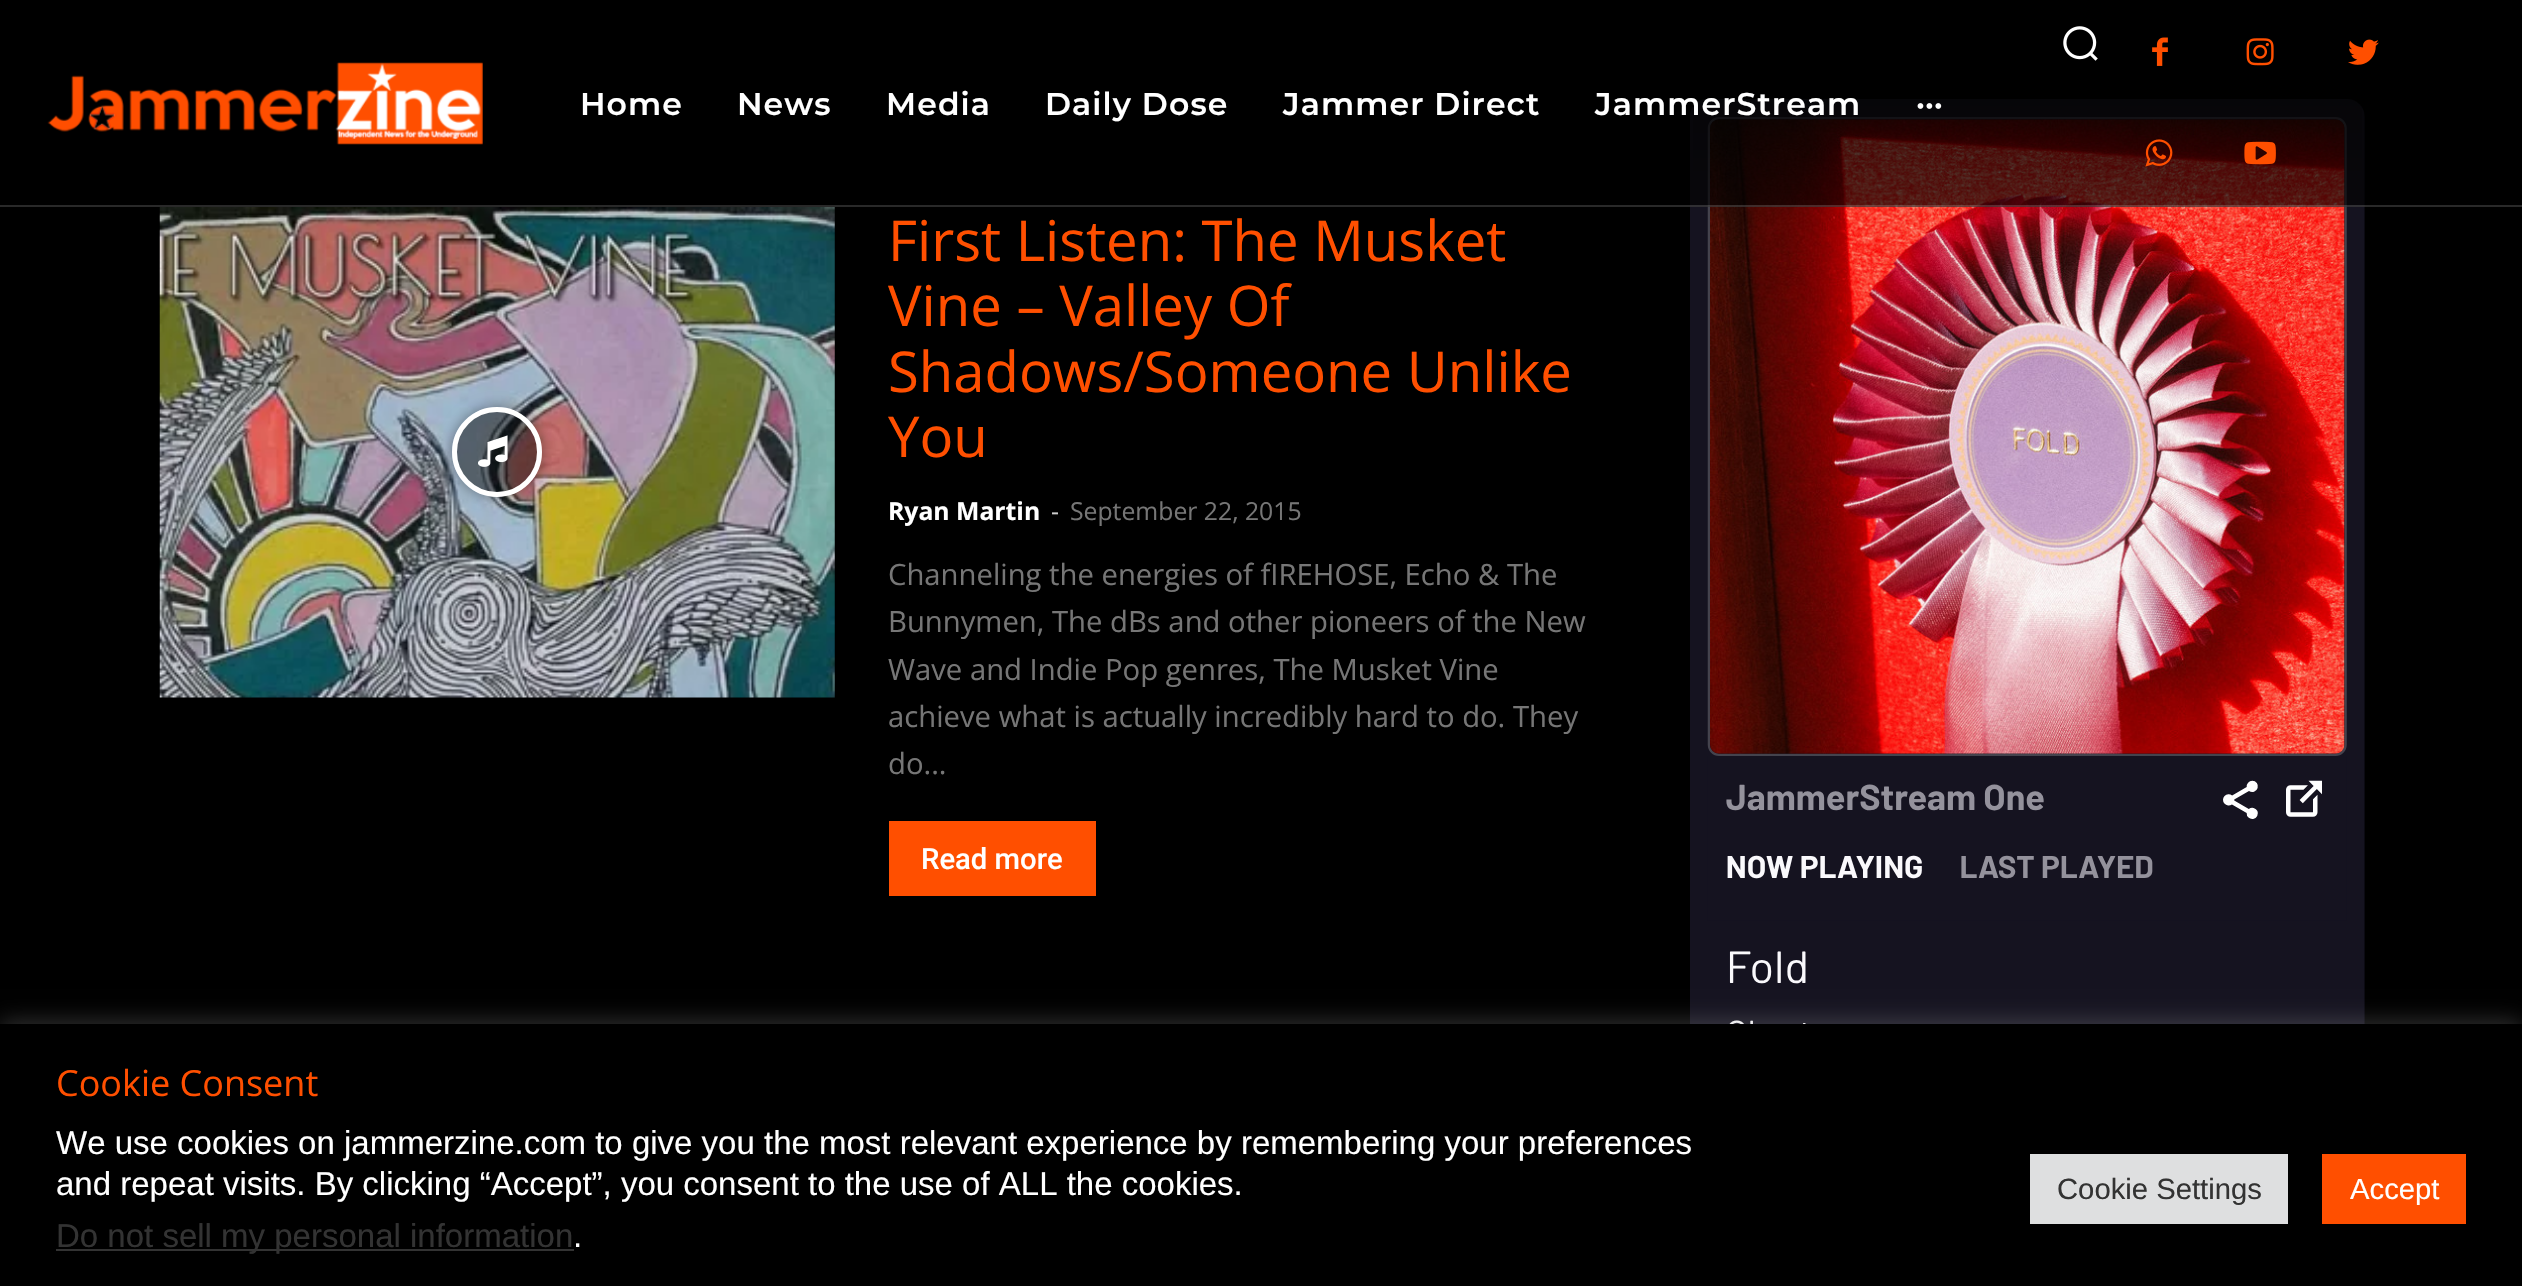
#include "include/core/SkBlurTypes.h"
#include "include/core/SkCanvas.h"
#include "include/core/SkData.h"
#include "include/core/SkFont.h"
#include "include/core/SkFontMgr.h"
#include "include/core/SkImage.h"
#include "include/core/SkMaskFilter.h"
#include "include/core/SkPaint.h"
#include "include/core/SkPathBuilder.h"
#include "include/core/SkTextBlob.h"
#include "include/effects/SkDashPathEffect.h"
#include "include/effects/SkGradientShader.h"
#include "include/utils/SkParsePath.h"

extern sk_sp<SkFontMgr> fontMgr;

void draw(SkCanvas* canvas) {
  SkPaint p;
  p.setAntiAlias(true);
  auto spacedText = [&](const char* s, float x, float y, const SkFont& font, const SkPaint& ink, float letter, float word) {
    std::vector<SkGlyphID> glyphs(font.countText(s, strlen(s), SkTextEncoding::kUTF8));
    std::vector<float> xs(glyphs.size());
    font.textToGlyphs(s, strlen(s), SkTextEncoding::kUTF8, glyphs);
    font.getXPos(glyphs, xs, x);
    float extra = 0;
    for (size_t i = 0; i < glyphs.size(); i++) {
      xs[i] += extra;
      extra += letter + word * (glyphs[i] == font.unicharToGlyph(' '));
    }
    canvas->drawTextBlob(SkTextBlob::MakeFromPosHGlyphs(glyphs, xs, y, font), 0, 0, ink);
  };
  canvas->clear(SK_ColorBLACK);
  canvas->drawImageRect(SkImages::DeferredFromEncodedData(SkData::MakeFromFileName("images/1.png")), SkRect::MakeLTRB(47, 62, 483, 145), SkSamplingOptions());
  canvas->drawImageRect(SkImages::DeferredFromEncodedData(SkData::MakeFromFileName("images/11.png")), SkRect::MakeLTRB(1690, 99, 2365, 1024), SkSamplingOptions());
  p.setColor(SkColorSetARGB(168, 0, 0, 0));
  canvas->drawRect(SkRect::MakeLTRB(1690, 99, 2365, 207), p);
  {
    const SkColor colors[] = {SkColorSetARGB(128, 0, 0, 0), SkColorSetARGB(0, 0, 0, 0)};
    const float stops[] = {0, 1};
    const SkPoint ends[] = {{1261, 0}, {1261, 207}};
    p.setShader(SkGradientShader::MakeLinear(ends, colors, stops, 2, SkTileMode::kClamp));
    p.setAlpha(255);
  }
  canvas->drawRect(SkRect::MakeLTRB(1693, 99, 2362, 195), p);
  canvas->drawImageRect(SkImages::DeferredFromEncodedData(SkData::MakeFromFileName("images/2.png")), SkRect::MakeLTRB(1917, 103, 1942, 109), SkSamplingOptions());
  canvas->drawImageRect(SkImages::DeferredFromEncodedData(SkData::MakeFromFileName("images/3.png")), SkRect::MakeLTRB(2063, 26, 2098, 61), SkSamplingOptions());
  canvas->drawImageRect(SkImages::DeferredFromEncodedData(SkData::MakeFromFileName("images/4.png")), SkRect::MakeLTRB(2152, 37, 2168, 66), SkSamplingOptions());
  canvas->drawImageRect(SkImages::DeferredFromEncodedData(SkData::MakeFromFileName("images/5.png")), SkRect::MakeLTRB(2246, 38, 2274, 66), SkSamplingOptions());
  canvas->drawImageRect(SkImages::DeferredFromEncodedData(SkData::MakeFromFileName("images/6.png")), SkRect::MakeLTRB(2348, 39, 2379, 65), SkSamplingOptions());
  canvas->drawImageRect(SkImages::DeferredFromEncodedData(SkData::MakeFromFileName("images/7.png")), SkRect::MakeLTRB(2145, 139, 2173, 167), SkSamplingOptions());
  canvas->drawImageRect(SkImages::DeferredFromEncodedData(SkData::MakeFromFileName("images/8.png")), SkRect::MakeLTRB(2244, 141, 2276, 165), SkSamplingOptions());
  p.setShader(nullptr);
  p.setColor(SkColorSetARGB(41, 255, 255, 255));
  canvas->drawRect(SkRect::MakeLTRB(0, 205, 2522, 207), p);
  canvas->drawImageRect(SkImages::DeferredFromEncodedData(SkData::MakeFromFileName("images/9.png")), SkRect::MakeLTRB(159, 207, 835, 698), SkSamplingOptions());
  canvas->save();
  canvas->clipPath(SkPathBuilder(SkPathFillType::kEvenOdd).moveTo(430, 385).lineTo(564, 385).lineTo(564, 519).lineTo(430, 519).close().moveTo(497, 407).cubicTo(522, 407, 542, 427, 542, 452).cubicTo(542, 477, 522, 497, 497, 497).cubicTo(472, 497, 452, 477, 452, 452).cubicTo(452, 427, 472, 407, 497, 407).close().detach(), true);
  p.setColor(SkColorSetARGB(102, 0, 0, 0));
  p.setMaskFilter(SkMaskFilter::MakeBlur(kNormal_SkBlurStyle, 7));
  canvas->drawRoundRect(SkRect::MakeLTRB(452, 407, 542, 497), 45, 45, p);
  p.setMaskFilter(nullptr);
  canvas->restore();
  p.setColor(SkColorSetARGB(122, 0, 0, 0));
  canvas->drawCircle(497, 452, 42.5f, p);
  p.setStyle(SkPaint::kStroke_Style);
  p.setStrokeWidth(5);
  p.setColor(SK_ColorWHITE);
  canvas->drawCircle(497, 452, 42.5f, p);
  canvas->drawImageRect(SkImages::DeferredFromEncodedData(SkData::MakeFromFileName("images/10.png")), SkRect::MakeLTRB(478, 435, 508, 467), SkSamplingOptions());
  p.setStyle(SkPaint::kFill_Style);
  p.setColor(SkColorSetRGB(255, 79, 0));
  canvas->drawRect(SkRect::MakeLTRB(889, 821, 1096, 896), p);
  p.setColor(SkColorSetARGB(77, 172, 171, 171));
  p.setMaskFilter(SkMaskFilter::MakeBlur(kNormal_SkBlurStyle, 11));
  canvas->drawRect(SkRect::MakeLTRB(0, 1022, 2522, 1285), p);
  p.setMaskFilter(nullptr);
  p.setColor(SK_ColorBLACK);
  canvas->drawRect(SkRect::MakeLTRB(0, 1024, 2522, 1286), p);
  p.setColor(SkColorSetRGB(51, 51, 51));
  canvas->drawRect(SkRect::MakeLTRB(56, 1249, 574, 1251), p);
  p.setColor(SkColorSetRGB(222, 223, 224));
  canvas->drawRect(SkRect::MakeLTRB(2030, 1154, 2288, 1224), p);
  p.setColor(SkColorSetRGB(255, 79, 0));
  canvas->drawRect(SkRect::MakeLTRB(2322, 1154, 2466, 1224), p);
  SkFont font1(fontMgr->matchFamilyStyle("Montserrat", SkFontStyle(600, SkFontStyle::kNormal_Width, SkFontStyle::kUpright_Slant)), 31.5f);
  font1.setSubpixel(true);
  p.setColor(SK_ColorWHITE);
  spacedText("Home", 580, 115, font1, p, 1.1f, 0);
  spacedText("News", 737, 115, font1, p, 1.1f, 0);
  spacedText("Media", 886, 115, font1, p, 1.1f, 0);
  spacedText("Daily Dose", 1045, 115, font1, p, 1.1f, 0);
  spacedText("Jammer Direct", 1283, 115, font1, p, 1.1f, 0);
  spacedText("JammerStream", 1595, 115, font1, p, 1.1f, 0);
  SkFont font2(fontMgr->matchFamilyStyle("Open Sans", SkFontStyle::Normal()), 56.25f);
  font2.setSubpixel(true);
  p.setColor(SkColorSetRGB(255, 79, 0));
  canvas->drawString("First Listen: The Musket", 888, 261, font2, p);
  canvas->drawString("Vine – Valley Of", 888, 326, font2, p);
  canvas->drawString("Shadows/Someone Unlike", 888, 392, font2, p);
  canvas->drawString("You", 888, 457, font2, p);
  SkFont font3(fontMgr->matchFamilyStyle("Open Sans", SkFontStyle::Bold()), 24.75f);
  font3.setSubpixel(true);
  p.setColor(SK_ColorWHITE);
  canvas->drawString("Ryan Martin", 888, 520, font3, p);
  SkFont font4(fontMgr->matchFamilyStyle("Open Sans", SkFontStyle::Normal()), 24.75f);
  font4.setSubpixel(true);
  p.setColor(SkColorSetRGB(204, 204, 204));
  canvas->drawString("-", 1051, 520, font4, p);
  p.setColor(SkColorSetRGB(118, 118, 118));
  canvas->drawString("September 22, 2015", 1070, 520, font4, p);
  SkFont font5(fontMgr->matchFamilyStyle("Open Sans", SkFontStyle::Normal()), 29.25f);
  font5.setSubpixel(true);
  canvas->drawString("Channeling the energies of fIREHOSE, Echo & The", 888, 585, font5, p);
  canvas->drawString("Bunnymen, The dBs and other pioneers of the New", 888, 632, font5, p);
  canvas->drawString("Wave and Indie Pop genres, The Musket Vine", 888, 680, font5, p);
  canvas->drawString("achieve what is actually incredibly hard to do. They", 888, 727, font5, p);
  canvas->drawString("do...", 888, 774, font5, p);
  SkFont font6(fontMgr->matchFamilyStyle("Roboto", SkFontStyle(500, SkFontStyle::kNormal_Width, SkFontStyle::kUpright_Slant)), 29.25f);
  font6.setSubpixel(true);
  p.setColor(SK_ColorWHITE);
  canvas->drawString("Read more", 921, 869, font6, p);
  SkFont font7(fontMgr->matchFamilyStyle("Open Sans", SkFontStyle::Normal()), 36);
  font7.setSubpixel(true);
  p.setColor(SkColorSetRGB(255, 79, 0));
  canvas->drawString("Cookie Consent", 56, 1096, font7, p);
  SkFont font8(fontMgr->matchFamilyStyle("Liberation Sans", SkFontStyle::Normal()), 33);
  font8.setSubpixel(true);
  p.setColor(SK_ColorWHITE);
  canvas->drawString("We use cookies on jammerzine.com to give you the most relevant experience by remembering your preferences", 56, 1154, font8, p);
  canvas->drawString("and repeat visits. By clicking “Accept”, you consent to the use of ALL the cookies.", 56, 1195, font8, p);
  p.setColor(SkColorSetRGB(51, 51, 51));
  canvas->drawString("Do not sell my personal information", 56, 1247, font8, p);
  p.setColor(SK_ColorWHITE);
  canvas->drawString(".", 573, 1247, font8, p);
  SkFont font9(fontMgr->matchFamilyStyle("Liberation Sans", SkFontStyle::Normal()), 29.25f);
  font9.setSubpixel(true);
  p.setColor(SkColorSetRGB(51, 51, 51));
  canvas->drawString("Cookie Settings", 2057, 1199, font9, p);
  p.setColor(SK_ColorWHITE);
  canvas->drawString("Accept", 2350, 1199, font9, p);
}
